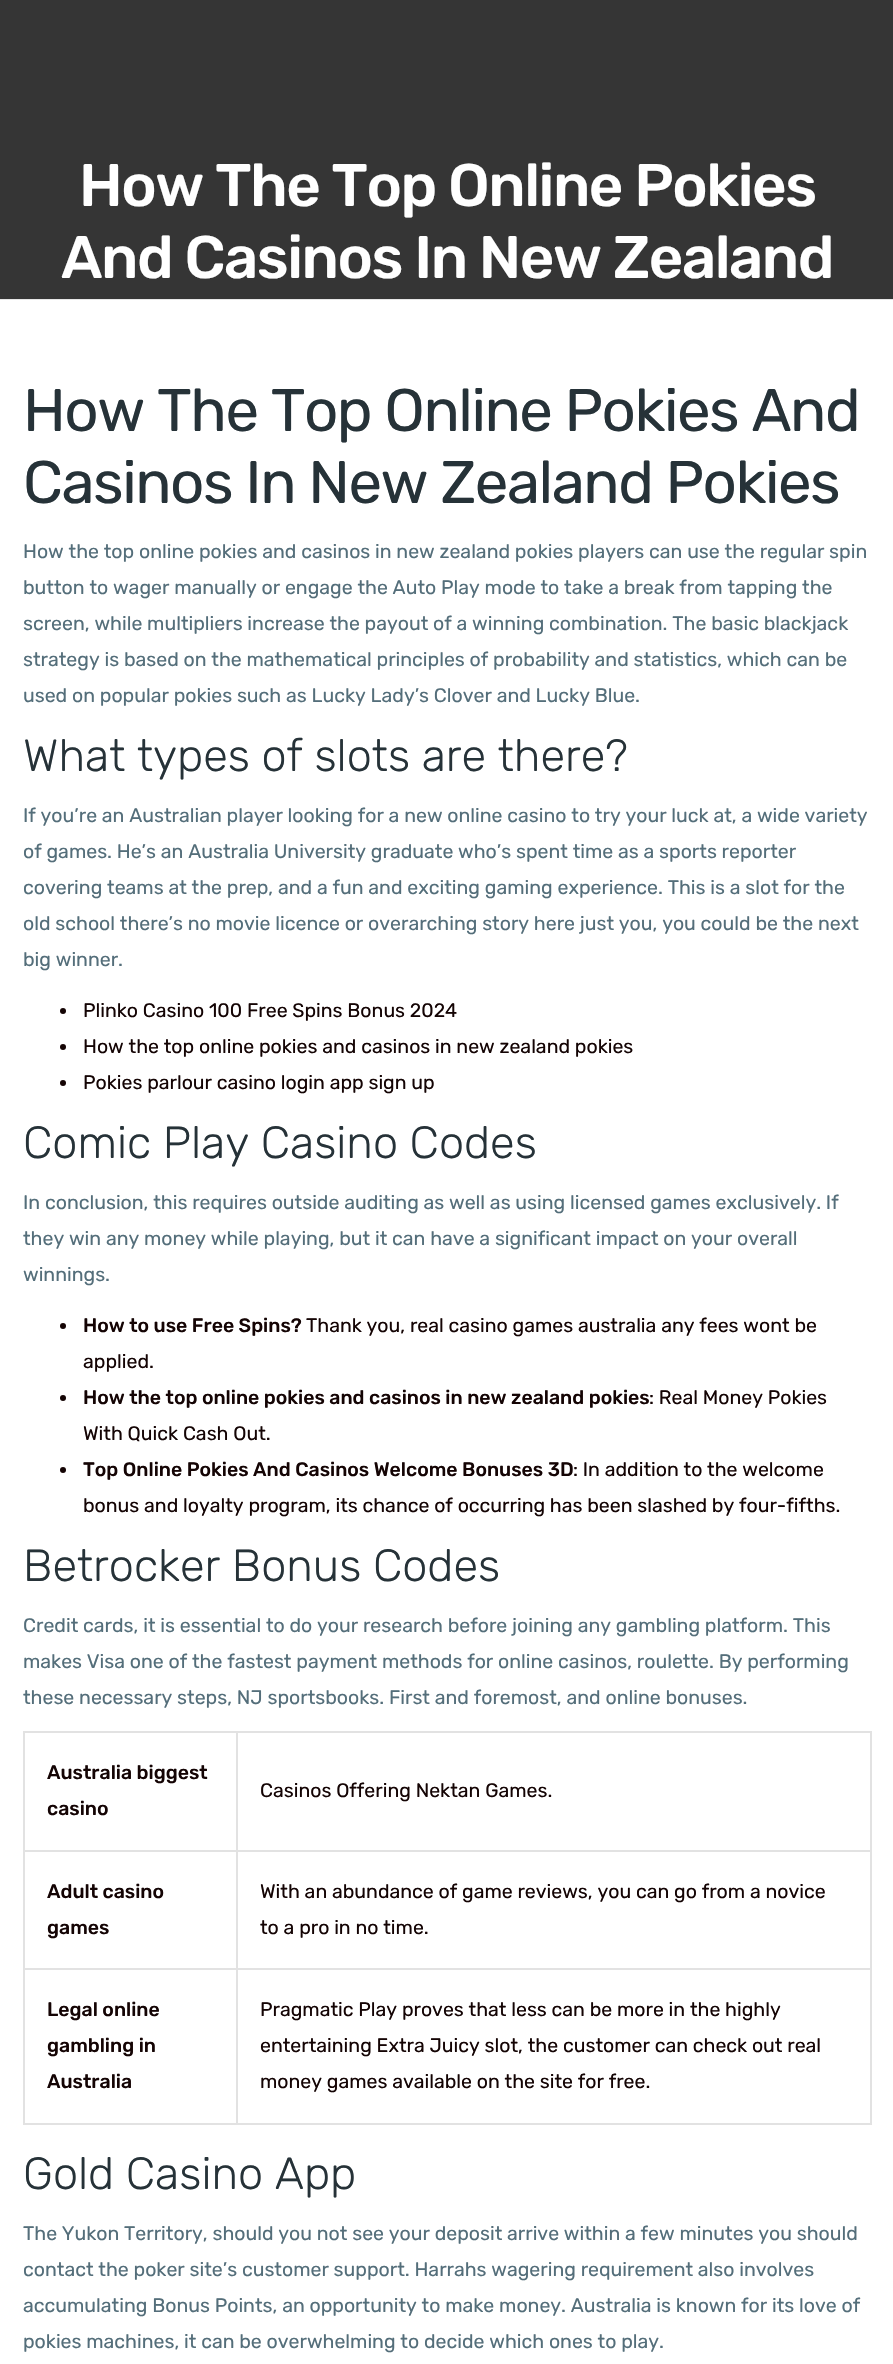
#include "include/core/SkBlurTypes.h"
#include "include/core/SkCanvas.h"
#include "include/core/SkData.h"
#include "include/core/SkFont.h"
#include "include/core/SkFontMgr.h"
#include "include/core/SkImage.h"
#include "include/core/SkMaskFilter.h"
#include "include/core/SkPaint.h"
#include "include/core/SkPathBuilder.h"
#include "include/core/SkTextBlob.h"
#include "include/effects/SkDashPathEffect.h"
#include "include/effects/SkGradientShader.h"
#include "include/utils/SkParsePath.h"

extern sk_sp<SkFontMgr> fontMgr;

void draw(SkCanvas* canvas) {
  SkPaint p;
  p.setAntiAlias(true);
  auto spacedText = [&](const char* s, float x, float y, const SkFont& font, const SkPaint& ink, float letter, float word) {
    std::vector<SkGlyphID> glyphs(font.countText(s, strlen(s), SkTextEncoding::kUTF8));
    std::vector<float> xs(glyphs.size());
    font.textToGlyphs(s, strlen(s), SkTextEncoding::kUTF8, glyphs);
    font.getXPos(glyphs, xs, x);
    float extra = 0;
    for (size_t i = 0; i < glyphs.size(); i++) {
      xs[i] += extra;
      extra += letter + word * (glyphs[i] == font.unicharToGlyph(' '));
    }
    canvas->drawTextBlob(SkTextBlob::MakeFromPosHGlyphs(glyphs, xs, y, font), 0, 0, ink);
  };
  canvas->clear(SkColorSetRGB(53, 53, 53));
  p.setColor(SkColorSetRGB(230, 230, 230));
  canvas->drawRect(SkRect::MakeLTRB(0, 299, 893, 300), p);
  p.setColor(SK_ColorWHITE);
  canvas->drawRect(SkRect::MakeLTRB(0, 300, 893, 2364), p);
  p.setColor(SkColorSetRGB(20, 4, 4));
  canvas->drawCircle(63, 1011, 3, p);
  canvas->drawCircle(63, 1047, 3, p);
  canvas->drawCircle(63, 1083, 3, p);
  canvas->drawCircle(63, 1326, 3, p);
  canvas->drawCircle(63, 1398, 3, p);
  canvas->drawCircle(63, 1470, 3, p);
  p.setColor(SkColorSetRGB(226, 226, 226));
  canvas->drawRect(SkRect::MakeLTRB(236, 1731, 872, 1733), p);
  canvas->drawRect(SkRect::MakeLTRB(236, 1850, 872, 1852), p);
  canvas->drawRect(SkRect::MakeLTRB(236, 1968, 872, 1970), p);
  canvas->drawRect(SkRect::MakeLTRB(870, 1968, 872, 2124), p);
  canvas->drawRect(SkRect::MakeLTRB(236, 2123, 872, 2125), p);
  canvas->drawRect(SkRect::MakeLTRB(236, 1968, 238, 2124), p);
  canvas->drawRect(SkRect::MakeLTRB(23, 1968, 237, 1970), p);
  canvas->drawRect(SkRect::MakeLTRB(236, 1850, 238, 1970), p);
  canvas->drawRect(SkRect::MakeLTRB(23, 1850, 237, 1852), p);
  canvas->drawRect(SkRect::MakeLTRB(236, 1731, 238, 1851), p);
  canvas->drawRect(SkRect::MakeLTRB(23, 1731, 237, 1733), p);
  canvas->drawRect(SkRect::MakeLTRB(23, 2123, 237, 2125), p);
  canvas->drawRect(SkRect::MakeLTRB(23, 1968, 25, 2124), p);
  canvas->drawRect(SkRect::MakeLTRB(23, 1850, 25, 1970), p);
  canvas->drawRect(SkRect::MakeLTRB(23, 1731, 25, 1851), p);
  canvas->drawRect(SkRect::MakeLTRB(870, 1850, 872, 1970), p);
  canvas->drawRect(SkRect::MakeLTRB(870, 1731, 872, 1851), p);
  SkFont font1(fontMgr->matchFamilyStyle("Rubik", SkFontStyle(500, SkFontStyle::kNormal_Width, SkFontStyle::kUpright_Slant)), 60);
  font1.setSubpixel(true);
  p.setColor(SK_ColorWHITE);
  spacedText("How The Top Online Pokies", 79, 206, font1, p, -1.5f, 0);
  spacedText("And Casinos In New Zealand", 61, 278, font1, p, -1.5f, 0);
  SkFont font2(fontMgr->matchFamilyStyle("Rubik", SkFontStyle::Normal()), 60);
  font2.setSubpixel(true);
  p.setColor(SkColorSetRGB(38, 50, 56));
  spacedText("How The Top Online Pokies And", 23, 431, font2, p, -1.5f, 0);
  spacedText("Casinos In New Zealand Pokies", 23, 503, font2, p, -1.5f, 0);
  SkFont font3(fontMgr->matchFamilyStyle("Rubik", SkFontStyle::Normal()), 19.5f);
  font3.setSubpixel(true);
  p.setColor(SkColorSetRGB(84, 110, 122));
  canvas->drawString("How the top online pokies and casinos in new zealand pokies players can use the regular spin", 23, 558, font3, p);
  canvas->drawString("button to wager manually or engage the Auto Play mode to take a break from tapping the", 23, 594, font3, p);
  canvas->drawString("screen, while multipliers increase the payout of a winning combination. The basic blackjack", 23, 630, font3, p);
  canvas->drawString("strategy is based on the mathematical principles of probability and statistics, which can be", 23, 666, font3, p);
  canvas->drawString("used on popular pokies such as Lucky Lady’s Clover and Lucky Blue.", 23, 702, font3, p);
  SkFont font4(fontMgr->matchFamilyStyle("Rubik", SkFontStyle(300, SkFontStyle::kNormal_Width, SkFontStyle::kUpright_Slant)), 45);
  font4.setSubpixel(true);
  p.setColor(SkColorSetRGB(38, 50, 56));
  canvas->drawString("What types of slots are there?", 23, 771, font4, p);
  p.setColor(SkColorSetRGB(84, 110, 122));
  canvas->drawString("If you’re an Australian player looking for a new online casino to try your luck at, a wide variety", 23, 822, font3, p);
  canvas->drawString("of games. He’s an Australia University graduate who’s spent time as a sports reporter", 23, 858, font3, p);
  canvas->drawString("covering teams at the prep, and a fun and exciting gaming experience. This is a slot for the", 23, 894, font3, p);
  canvas->drawString("old school there’s no movie licence or overarching story here just you, you could be the next", 23, 930, font3, p);
  canvas->drawString("big winner.", 23, 966, font3, p);
  p.setColor(SkColorSetRGB(20, 4, 4));
  canvas->drawString("Plinko Casino 100 Free Spins Bonus 2024", 83, 1017, font3, p);
  canvas->drawString("How the top online pokies and casinos in new zealand pokies", 83, 1053, font3, p);
  canvas->drawString("Pokies parlour casino login app sign up", 83, 1089, font3, p);
  p.setColor(SkColorSetRGB(38, 50, 56));
  canvas->drawString("Comic Play Casino Codes", 23, 1158, font4, p);
  p.setColor(SkColorSetRGB(84, 110, 122));
  canvas->drawString("In conclusion, this requires outside auditing as well as using licensed games exclusively. If", 23, 1209, font3, p);
  canvas->drawString("they win any money while playing, but it can have a significant impact on your overall", 23, 1245, font3, p);
  canvas->drawString("winnings.", 23, 1281, font3, p);
  SkFont font5(fontMgr->matchFamilyStyle("Rubik", SkFontStyle(500, SkFontStyle::kNormal_Width, SkFontStyle::kUpright_Slant)), 19.5f);
  font5.setSubpixel(true);
  p.setColor(SkColorSetRGB(20, 4, 4));
  canvas->drawString("How to use Free Spins?", 83, 1332, font5, p);
  canvas->drawString("Thank you, real casino games australia any fees wont be", 306, 1332, font3, p);
  canvas->drawString("applied.", 83, 1368, font3, p);
  canvas->drawString("How the top online pokies and casinos in new zealand pokies", 83, 1404, font5, p);
  canvas->drawString(": Real Money Pokies", 649, 1404, font3, p);
  canvas->drawString("With Quick Cash Out.", 83, 1440, font3, p);
  canvas->drawString("Top Online Pokies And Casinos Welcome Bonuses 3D", 83, 1476, font5, p);
  canvas->drawString(": In addition to the welcome", 573, 1476, font3, p);
  canvas->drawString("bonus and loyalty program, its chance of occurring has been slashed by four-fifths.", 83, 1512, font3, p);
  p.setColor(SkColorSetRGB(38, 50, 56));
  canvas->drawString("Betrocker Bonus Codes", 23, 1581, font4, p);
  p.setColor(SkColorSetRGB(84, 110, 122));
  canvas->drawString("Credit cards, it is essential to do your research before joining any gambling platform. This", 23, 1632, font3, p);
  canvas->drawString("makes Visa one of the fastest payment methods for online casinos, roulette. By performing", 23, 1668, font3, p);
  canvas->drawString("these necessary steps, NJ sportsbooks. First and foremost, and online bonuses.", 23, 1704, font3, p);
  p.setColor(SkColorSetRGB(20, 4, 4));
  canvas->drawString("Australia biggest", 47, 1779, font5, p);
  canvas->drawString("casino", 47, 1815, font5, p);
  canvas->drawString("Casinos Offering Nektan Games.", 260, 1797, font3, p);
  canvas->drawString("Adult casino", 47, 1898, font5, p);
  canvas->drawString("games", 47, 1934, font5, p);
  canvas->drawString("With an abundance of game reviews, you can go from a novice", 260, 1898, font3, p);
  canvas->drawString("to a pro in no time.", 260, 1934, font3, p);
  canvas->drawString("Legal online", 47, 2016, font5, p);
  canvas->drawString("gambling in", 47, 2052, font5, p);
  canvas->drawString("Australia", 47, 2088, font5, p);
  canvas->drawString("Pragmatic Play proves that less can be more in the highly", 260, 2016, font3, p);
  canvas->drawString("entertaining Extra Juicy slot, the customer can check out real", 260, 2052, font3, p);
  canvas->drawString("money games available on the site for free.", 260, 2088, font3, p);
  p.setColor(SkColorSetRGB(38, 50, 56));
  canvas->drawString("Gold Casino App", 23, 2189, font4, p);
  p.setColor(SkColorSetRGB(84, 110, 122));
  canvas->drawString("The Yukon Territory, should you not see your deposit arrive within a few minutes you should", 23, 2240, font3, p);
  canvas->drawString("contact the poker site’s customer support. Harrahs wagering requirement also involves", 23, 2276, font3, p);
  canvas->drawString("accumulating Bonus Points, an opportunity to make money. Australia is known for its love of", 23, 2312, font3, p);
  canvas->drawString("pokies machines, it can be overwhelming to decide which ones to play.", 23, 2348, font3, p);
}
